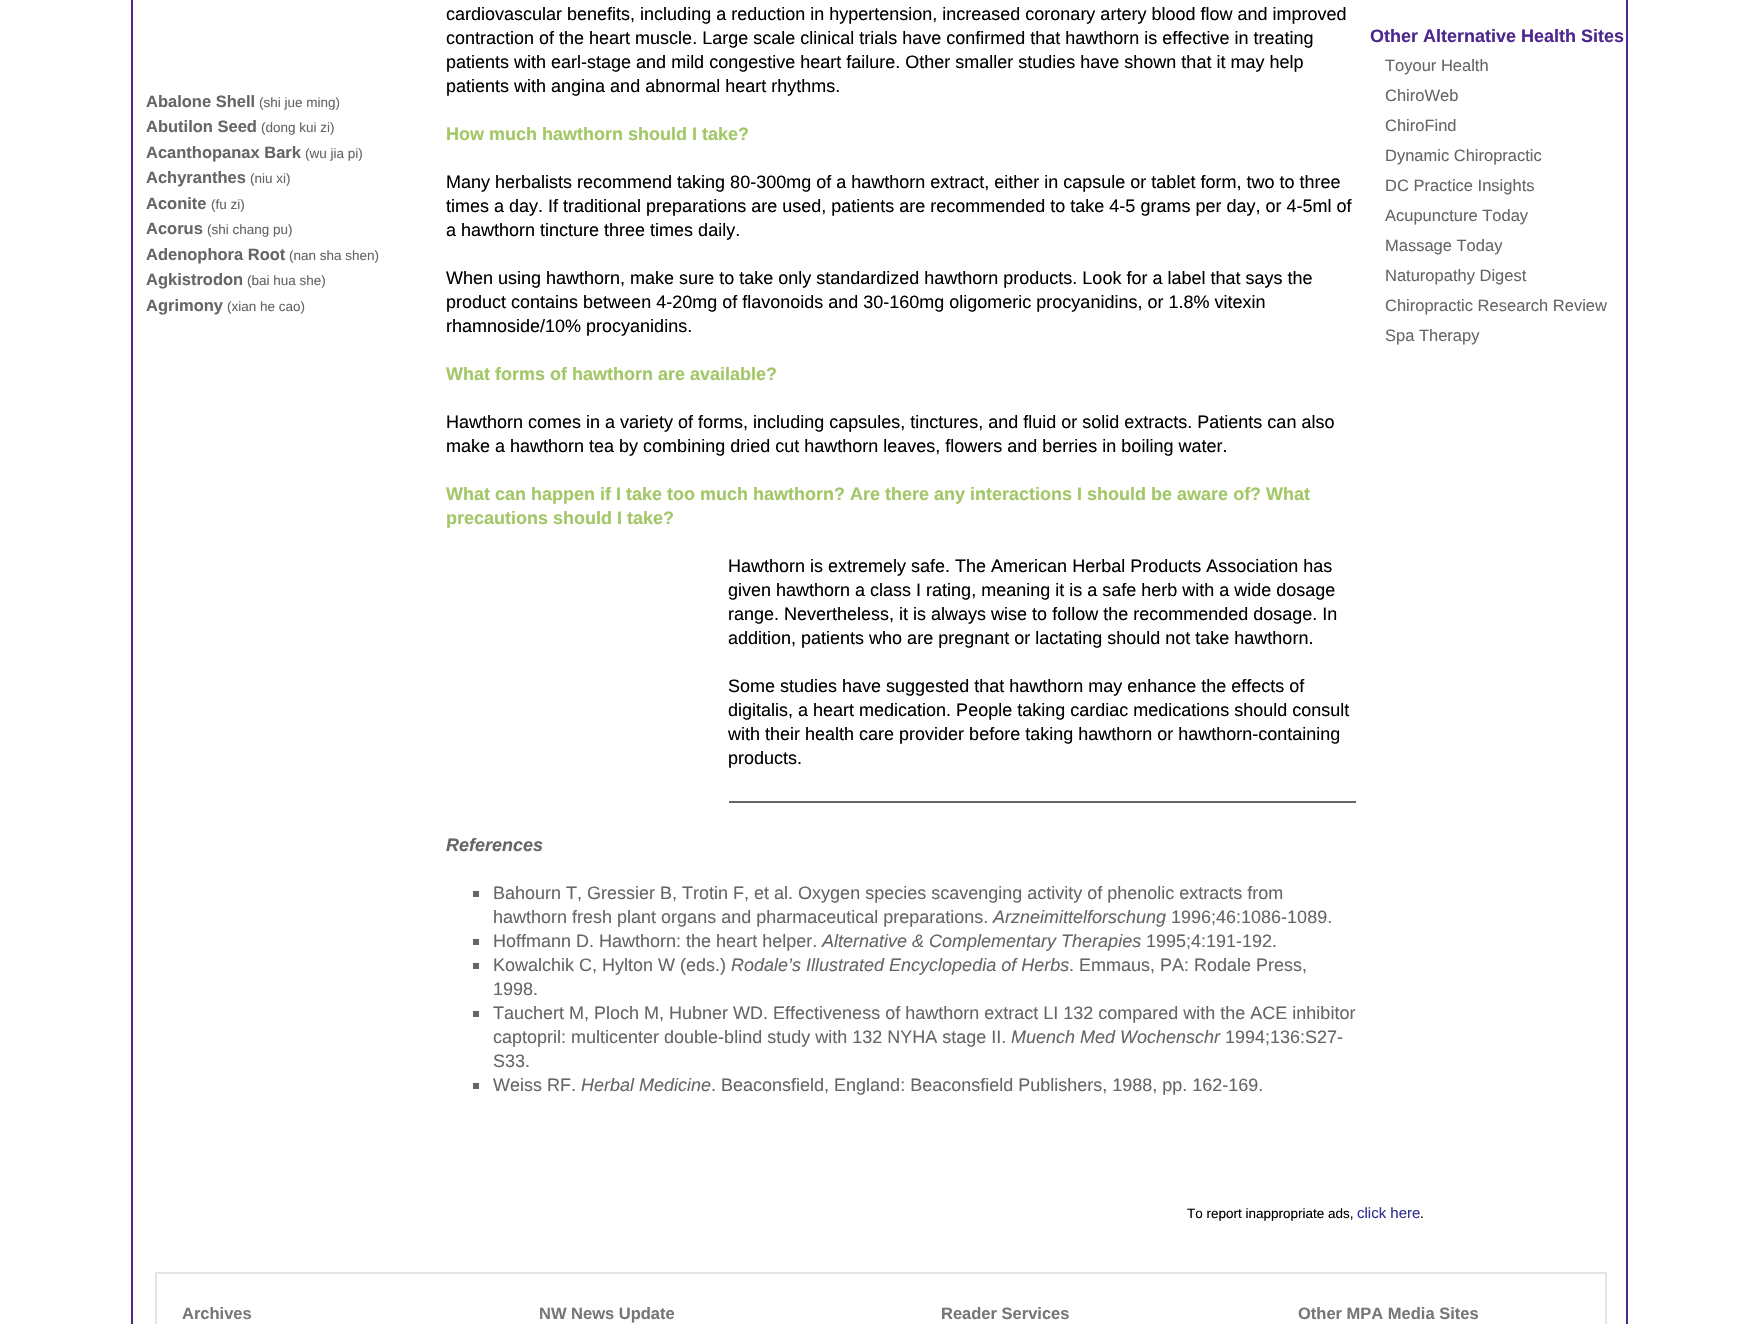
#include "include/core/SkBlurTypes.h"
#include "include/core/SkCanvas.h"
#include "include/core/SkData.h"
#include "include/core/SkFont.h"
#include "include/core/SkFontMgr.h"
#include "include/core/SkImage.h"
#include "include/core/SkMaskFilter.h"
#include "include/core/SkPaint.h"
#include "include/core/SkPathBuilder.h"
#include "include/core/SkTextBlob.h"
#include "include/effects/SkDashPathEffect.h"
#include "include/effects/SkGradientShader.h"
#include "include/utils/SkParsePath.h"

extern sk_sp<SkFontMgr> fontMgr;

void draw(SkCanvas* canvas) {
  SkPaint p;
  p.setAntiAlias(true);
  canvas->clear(SK_ColorWHITE);
  p.setStyle(SkPaint::kStroke_Style);
  p.setStrokeWidth(2);
  p.setColor(SkColorSetRGB(76, 39, 142));
  canvas->drawRect(SkRect::MakeLTRB(132, -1, 1627, 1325), p);
  p.setStyle(SkPaint::kFill_Style);
  p.setColor(SkColorSetRGB(102, 102, 102));
  canvas->drawRect(SkRect::MakeLTRB(729, 801, 1356, 803), p);
  canvas->drawRect(SkRect::MakeLTRB(473, 891, 479, 897), p);
  canvas->drawRect(SkRect::MakeLTRB(473, 939, 479, 945), p);
  canvas->drawRect(SkRect::MakeLTRB(473, 963, 479, 969), p);
  canvas->drawRect(SkRect::MakeLTRB(473, 1011, 479, 1017), p);
  canvas->drawRect(SkRect::MakeLTRB(473, 1083, 479, 1089), p);
  p.setStyle(SkPaint::kStroke_Style);
  p.setColor(SkColorSetRGB(229, 229, 229));
  canvas->drawRect(SkRect::MakeLTRB(156, 1273, 1606, 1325), p);
  SkFont font1(fontMgr->matchFamilyStyle("Liberation Sans", SkFontStyle::Bold()), 16.5f);
  font1.setSubpixel(true);
  p.setStyle(SkPaint::kFill_Style);
  p.setColor(SkColorSetRGB(102, 102, 102));
  canvas->drawString("Abalone Shell", 146, 107, font1, p);
  SkFont font2(fontMgr->matchFamilyStyle("Liberation Sans", SkFontStyle::Normal()), 13.5f);
  font2.setSubpixel(true);
  canvas->drawString("(shi jue ming)", 259, 107, font2, p);
  canvas->drawString("Abutilon Seed", 146, 132, font1, p);
  canvas->drawString("(dong kui zi)", 261, 132, font2, p);
  canvas->drawString("Acanthopanax Bark", 146, 158, font1, p);
  canvas->drawString("(wu jia pi)", 305, 158, font2, p);
  canvas->drawString("Achyranthes", 146, 183, font1, p);
  canvas->drawString("(niu xi)", 250, 183, font2, p);
  canvas->drawString("Aconite", 146, 209, font1, p);
  canvas->drawString("(fu zi)", 211, 209, font2, p);
  canvas->drawString("Acorus", 146, 234, font1, p);
  canvas->drawString("(shi chang pu)", 207, 234, font2, p);
  canvas->drawString("Adenophora Root", 146, 260, font1, p);
  canvas->drawString("(nan sha shen)", 289, 260, font2, p);
  canvas->drawString("Agkistrodon", 146, 285, font1, p);
  canvas->drawString("(bai hua she)", 247, 285, font2, p);
  canvas->drawString("Agrimony", 146, 311, font1, p);
  canvas->drawString("(xian he cao)", 227, 311, font2, p);
  SkFont font3(fontMgr->matchFamilyStyle("Liberation Sans", SkFontStyle::Normal()), 18);
  font3.setSubpixel(true);
  p.setColor(SK_ColorBLACK);
  canvas->drawString("cardiovascular benefits, including a reduction in hypertension, increased coronary artery blood flow and improved", 446, 20, font3, p);
  canvas->drawString("contraction of the heart muscle. Large scale clinical trials have confirmed that hawthorn is effective in treating", 446, 44, font3, p);
  canvas->drawString("patients with earl-stage and mild congestive heart failure. Other smaller studies have shown that it may help", 446, 68, font3, p);
  canvas->drawString("patients with angina and abnormal heart rhythms.", 446, 92, font3, p);
  SkFont font4(fontMgr->matchFamilyStyle("Liberation Sans", SkFontStyle::Bold()), 18);
  font4.setSubpixel(true);
  p.setColor(SkColorSetRGB(162, 199, 102));
  canvas->drawString("How much hawthorn should I take?", 446, 140, font4, p);
  p.setColor(SK_ColorBLACK);
  canvas->drawString("Many herbalists recommend taking 80-300mg of a hawthorn extract, either in capsule or tablet form, two to three", 446, 188, font3, p);
  canvas->drawString("times a day. If traditional preparations are used, patients are recommended to take 4-5 grams per day, or 4-5ml of", 446, 212, font3, p);
  canvas->drawString("a hawthorn tincture three times daily.", 446, 236, font3, p);
  canvas->drawString("When using hawthorn, make sure to take only standardized hawthorn products. Look for a label that says the", 446, 284, font3, p);
  canvas->drawString("product contains between 4-20mg of flavonoids and 30-160mg oligomeric procyanidins, or 1.8% vitexin", 446, 308, font3, p);
  canvas->drawString("rhamnoside/10% procyanidins.", 446, 332, font3, p);
  p.setColor(SkColorSetRGB(162, 199, 102));
  canvas->drawString("What forms of hawthorn are available?", 446, 380, font4, p);
  p.setColor(SK_ColorBLACK);
  canvas->drawString("Hawthorn comes in a variety of forms, including capsules, tinctures, and fluid or solid extracts. Patients can also", 446, 428, font3, p);
  canvas->drawString("make a hawthorn tea by combining dried cut hawthorn leaves, flowers and berries in boiling water.", 446, 452, font3, p);
  p.setColor(SkColorSetRGB(162, 199, 102));
  canvas->drawString("What can happen if I take too much hawthorn? Are there any interactions I should be aware of? What", 446, 500, font4, p);
  canvas->drawString("precautions should I take?", 446, 524, font4, p);
  p.setColor(SK_ColorBLACK);
  canvas->drawString("Hawthorn is extremely safe. The American Herbal Products Association has", 728, 572, font3, p);
  canvas->drawString("given hawthorn a class I rating, meaning it is a safe herb with a wide dosage", 728, 596, font3, p);
  canvas->drawString("range. Nevertheless, it is always wise to follow the recommended dosage. In", 728, 620, font3, p);
  canvas->drawString("addition, patients who are pregnant or lactating should not take hawthorn.", 728, 644, font3, p);
  canvas->drawString("Some studies have suggested that hawthorn may enhance the effects of", 728, 692, font3, p);
  canvas->drawString("digitalis, a heart medication. People taking cardiac medications should consult", 728, 716, font3, p);
  canvas->drawString("with their health care provider before taking hawthorn or hawthorn-containing", 728, 740, font3, p);
  canvas->drawString("products.", 728, 764, font3, p);
  SkFont font5(fontMgr->matchFamilyStyle("Liberation Sans", SkFontStyle::BoldItalic()), 18);
  font5.setSubpixel(true);
  p.setColor(SkColorSetRGB(102, 102, 102));
  canvas->drawString("References", 446, 851, font5, p);
  canvas->drawString("Bahourn T, Gressier B, Trotin F, et al. Oxygen species scavenging activity of phenolic extracts from", 493, 899, font3, p);
  canvas->drawString("hawthorn fresh plant organs and pharmaceutical preparations.", 493, 923, font3, p);
  SkFont font6(fontMgr->matchFamilyStyle("Liberation Sans", SkFontStyle::Italic()), 18);
  font6.setSubpixel(true);
  canvas->drawString("Arzneimittelforschung", 993, 923, font6, p);
  canvas->drawString("1996;46:1086-1089.", 1171, 923, font3, p);
  canvas->drawString("Hoffmann D. Hawthorn: the heart helper.", 493, 947, font3, p);
  canvas->drawString("Alternative & Complementary Therapies", 822, 947, font6, p);
  canvas->drawString("1995;4:191-192.", 1146, 947, font3, p);
  canvas->drawString("Kowalchik C, Hylton W (eds.)", 493, 971, font3, p);
  canvas->drawString("Rodale’s Illustrated Encyclopedia of Herbs", 731, 971, font6, p);
  canvas->drawString(". Emmaus, PA: Rodale Press,", 1069, 971, font3, p);
  canvas->drawString("1998.", 493, 995, font3, p);
  canvas->drawString("Tauchert M, Ploch M, Hubner WD. Effectiveness of hawthorn extract LI 132 compared with the ACE inhibitor", 493, 1019, font3, p);
  canvas->drawString("captopril: multicenter double-blind study with 132 NYHA stage II.", 493, 1043, font3, p);
  canvas->drawString("Muench Med Wochenschr", 1011, 1043, font6, p);
  canvas->drawString("1994;136:S27-", 1225, 1043, font3, p);
  canvas->drawString("S33.", 493, 1067, font3, p);
  canvas->drawString("Weiss RF.", 493, 1091, font3, p);
  canvas->drawString("Herbal Medicine", 581, 1091, font6, p);
  canvas->drawString(". Beaconsfield, England: Beaconsfield Publishers, 1988, pp. 162-169.", 711, 1091, font3, p);
  p.setColor(SkColorSetRGB(76, 39, 142));
  canvas->drawString("Other Alternative Health Sites", 1370, 42, font4, p);
  SkFont font7(fontMgr->matchFamilyStyle("Liberation Sans", SkFontStyle::Normal()), 16.5f);
  font7.setSubpixel(true);
  p.setColor(SkColorSetRGB(102, 102, 102));
  canvas->drawString("Toyour Health", 1385, 71, font7, p);
  canvas->drawString("ChiroWeb", 1385, 101, font7, p);
  canvas->drawString("ChiroFind", 1385, 131, font7, p);
  canvas->drawString("Dynamic Chiropractic", 1385, 161, font7, p);
  canvas->drawString("DC Practice Insights", 1385, 191, font7, p);
  canvas->drawString("Acupuncture Today", 1385, 221, font7, p);
  canvas->drawString("Massage Today", 1385, 251, font7, p);
  canvas->drawString("Naturopathy Digest", 1385, 281, font7, p);
  canvas->drawString("Chiropractic Research Review", 1385, 311, font7, p);
  canvas->drawString("Spa Therapy", 1385, 341, font7, p);
  p.setColor(SK_ColorBLACK);
  canvas->drawString("To report inappropriate ads,", 1187, 1218, font2, p);
  SkFont font8(fontMgr->matchFamilyStyle("Liberation Sans", SkFontStyle::Normal()), 15);
  font8.setSubpixel(true);
  p.setColor(SkColorSetRGB(46, 49, 146));
  canvas->drawString("click here", 1357, 1218, font8, p);
  p.setColor(SK_ColorBLACK);
  canvas->drawString(".", 1420, 1218, font2, p);
  p.setColor(SkColorSetRGB(119, 119, 119));
  canvas->drawString("Archives", 182, 1319, font1, p);
  canvas->drawString("NW News Update", 539, 1319, font1, p);
  canvas->drawString("Reader Services", 941, 1319, font1, p);
  canvas->drawString("Other MPA Media Sites", 1298, 1319, font1, p);
}
